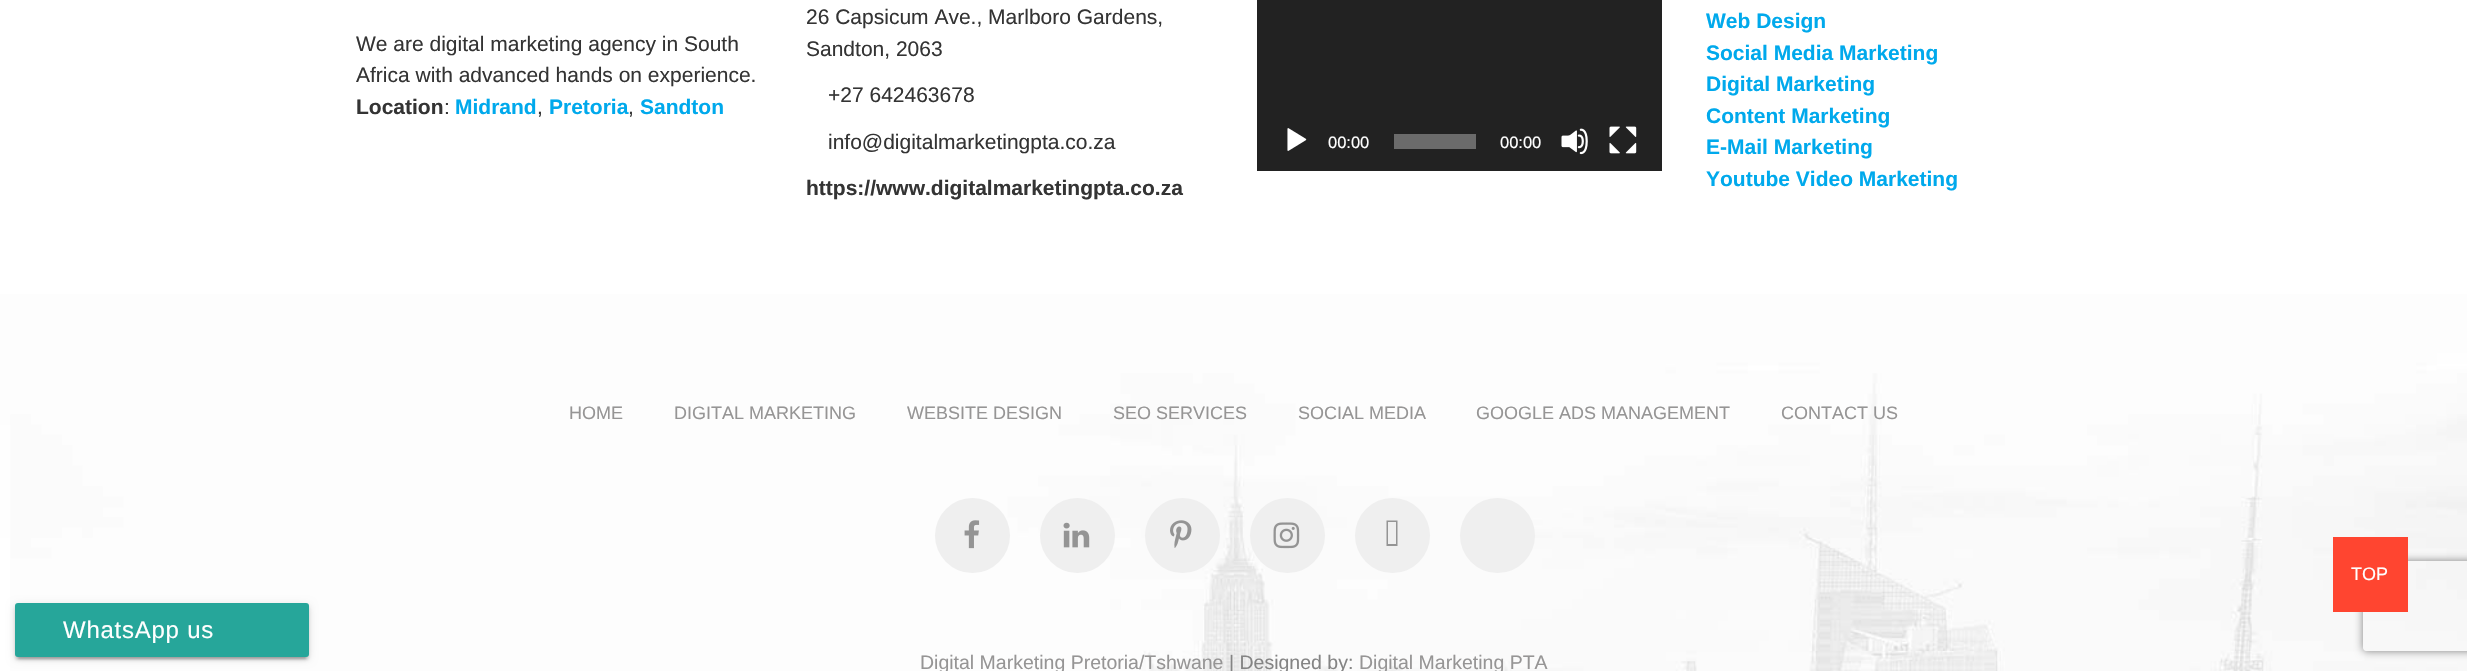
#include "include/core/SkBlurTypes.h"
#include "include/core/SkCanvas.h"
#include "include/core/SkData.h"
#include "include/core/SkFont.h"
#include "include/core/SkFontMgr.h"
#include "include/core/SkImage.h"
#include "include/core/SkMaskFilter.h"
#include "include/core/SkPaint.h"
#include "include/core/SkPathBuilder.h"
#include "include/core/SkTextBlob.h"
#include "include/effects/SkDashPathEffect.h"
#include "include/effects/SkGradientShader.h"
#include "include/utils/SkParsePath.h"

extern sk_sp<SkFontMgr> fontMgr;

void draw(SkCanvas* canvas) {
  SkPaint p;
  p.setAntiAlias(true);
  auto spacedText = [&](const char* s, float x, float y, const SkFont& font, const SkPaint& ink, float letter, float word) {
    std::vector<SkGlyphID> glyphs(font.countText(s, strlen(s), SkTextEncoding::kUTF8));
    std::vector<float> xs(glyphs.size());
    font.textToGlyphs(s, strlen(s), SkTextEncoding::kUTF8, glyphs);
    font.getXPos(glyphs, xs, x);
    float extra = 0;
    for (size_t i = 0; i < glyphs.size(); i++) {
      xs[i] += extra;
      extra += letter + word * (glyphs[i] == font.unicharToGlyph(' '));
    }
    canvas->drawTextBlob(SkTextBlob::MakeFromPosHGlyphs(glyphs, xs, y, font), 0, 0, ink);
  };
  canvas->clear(SK_ColorWHITE);
  canvas->drawImageRect(SkImages::DeferredFromEncodedData(SkData::MakeFromFileName("images/4.png")), SkRect::MakeLTRB(0, 294, 2467, 671), SkSamplingOptions());
  p.setColor(SkColorSetARGB(51, 0, 0, 0));
  p.setMaskFilter(SkMaskFilter::MakeBlur(kNormal_SkBlurStyle, 1));
  canvas->drawRect(SkRect::MakeLTRB(18, 611, 306, 659), p);
  p.setMaskFilter(nullptr);
  p.setColor(SkColorSetARGB(31, 0, 0, 0));
  p.setMaskFilter(SkMaskFilter::MakeBlur(kNormal_SkBlurStyle, 4));
  canvas->drawRoundRect(SkRect::MakeLTRB(15, 605, 309, 659), 3, 3, p);
  p.setMaskFilter(nullptr);
  p.setColor(SkColorSetARGB(36, 0, 0, 0));
  p.setMaskFilter(SkMaskFilter::MakeBlur(kNormal_SkBlurStyle, 1.5f));
  canvas->drawRoundRect(SkRect::MakeLTRB(15, 606, 309, 660), 3, 3, p);
  p.setMaskFilter(nullptr);
  p.setColor(SkColorSetRGB(38, 166, 154));
  canvas->drawRoundRect(SkRect::MakeLTRB(15, 603, 309, 657), 3, 3, p);
  p.setColor(SkColorSetRGB(34, 34, 34));
  canvas->drawRect(SkRect::MakeLTRB(1257, 0, 1662, 171), p);
  canvas->drawImageRect(SkImages::DeferredFromEncodedData(SkData::MakeFromFileName("images/1.png")), SkRect::MakeLTRB(1287, 128, 1307, 151), SkSamplingOptions());
  p.setColor(SkColorSetRGB(107, 107, 107));
  canvas->drawRect(SkRect::MakeLTRB(1394, 134, 1476, 149), p);
  canvas->drawImageRect(SkImages::DeferredFromEncodedData(SkData::MakeFromFileName("images/2.png")), SkRect::MakeLTRB(1561, 128, 1588, 155), SkSamplingOptions());
  canvas->drawImageRect(SkImages::DeferredFromEncodedData(SkData::MakeFromFileName("images/3.png")), SkRect::MakeLTRB(1609, 126, 1637, 154), SkSamplingOptions());
  p.setColor(SkColorSetRGB(239, 239, 239));
  canvas->drawCircle(972.5f, 535.5f, 37.5f, p);
  canvas->drawImageRect(SkImages::DeferredFromEncodedData(SkData::MakeFromFileName("images/5.png")), SkRect::MakeLTRB(964, 520, 980, 549), SkSamplingOptions());
  canvas->drawCircle(1077.5f, 535.5f, 37.5f, p);
  canvas->drawImageRect(SkImages::DeferredFromEncodedData(SkData::MakeFromFileName("images/6.png")), SkRect::MakeLTRB(1063, 522, 1090, 548), SkSamplingOptions());
  canvas->drawCircle(1182.5f, 535.5f, 37.5f, p);
  canvas->drawImageRect(SkImages::DeferredFromEncodedData(SkData::MakeFromFileName("images/7.png")), SkRect::MakeLTRB(1170, 520, 1192, 548), SkSamplingOptions());
  canvas->drawCircle(1287.5f, 535.5f, 37.5f, p);
  canvas->drawImageRect(SkImages::DeferredFromEncodedData(SkData::MakeFromFileName("images/8.png")), SkRect::MakeLTRB(1273, 522, 1300, 549), SkSamplingOptions());
  canvas->drawCircle(1392.5f, 535.5f, 37.5f, p);
  p.setColor(SkColorSetRGB(148, 148, 148));
  canvas->drawPath(SkPathBuilder().moveTo(1388, 544).lineTo(1388, 522).lineTo(1396, 522).lineTo(1396, 544).close().moveTo(1386.5f, 546).lineTo(1397.5f, 546).lineTo(1397.5f, 520.5f).lineTo(1386.5f, 520.5f).close().detach(), p);
  p.setColor(SkColorSetRGB(239, 239, 239));
  canvas->drawCircle(1497.5f, 535.5f, 37.5f, p);
  canvas->save();
  canvas->clipPath(SkPathBuilder(SkPathFillType::kEvenOdd).moveTo(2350, 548).lineTo(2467, 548).lineTo(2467, 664).lineTo(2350, 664).close().moveTo(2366, 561).lineTo(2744, 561).cubicTo(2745.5f, 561, 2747, 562.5f, 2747, 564).lineTo(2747, 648).cubicTo(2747, 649.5f, 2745.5f, 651, 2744, 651).lineTo(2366, 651).cubicTo(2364.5f, 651, 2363, 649.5f, 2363, 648).lineTo(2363, 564).cubicTo(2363, 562.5f, 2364.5f, 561, 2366, 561).close().detach(), true);
  p.setColor(SkColorSetRGB(128, 128, 128));
  p.setMaskFilter(SkMaskFilter::MakeBlur(kNormal_SkBlurStyle, 4));
  canvas->drawRoundRect(SkRect::MakeLTRB(2363, 561, 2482, 651), 3, 3, p);
  p.setMaskFilter(nullptr);
  canvas->restore();
  p.setColor(SkColorSetRGB(255, 69, 48));
  canvas->drawRect(SkRect::MakeLTRB(2333, 537, 2408, 612), p);
  SkFont font1(fontMgr->matchFamilyStyle("Liberation Sans", SkFontStyle::Normal()), 24);
  font1.setSubpixel(true);
  p.setColor(SK_ColorWHITE);
  spacedText("WhatsApp us", 63, 638, font1, p, 0.75f, 0);
  SkFont font2(fontMgr->matchFamilyStyle("Liberation Sans", SkFontStyle::Normal()), 21);
  font2.setSubpixel(true);
  p.setColor(SkColorSetRGB(52, 52, 52));
  canvas->drawString("We are digital marketing agency in South", 356, 51, font2, p);
  canvas->drawString("Africa with advanced hands on experience.", 356, 82, font2, p);
  SkFont font3(fontMgr->matchFamilyStyle("Liberation Sans", SkFontStyle::Bold()), 21);
  font3.setSubpixel(true);
  canvas->drawString("Location", 356, 114, font3, p);
  canvas->drawString(":", 444, 114, font2, p);
  p.setColor(SkColorSetRGB(0, 169, 236));
  canvas->drawString("Midrand", 455, 114, font3, p);
  p.setColor(SkColorSetRGB(52, 52, 52));
  canvas->drawString(",", 537, 114, font2, p);
  p.setColor(SkColorSetRGB(0, 169, 236));
  canvas->drawString("Pretoria", 549, 114, font3, p);
  p.setColor(SkColorSetRGB(52, 52, 52));
  canvas->drawString(",", 628, 114, font2, p);
  p.setColor(SkColorSetRGB(0, 169, 236));
  canvas->drawString("Sandton", 640, 114, font3, p);
  p.setColor(SkColorSetRGB(52, 52, 52));
  canvas->drawString("26 Capsicum Ave., Marlboro Gardens,", 806, 24, font2, p);
  canvas->drawString("Sandton, 2063", 806, 56, font2, p);
  canvas->drawString("+27 642463678", 828, 102, font2, p);
  canvas->drawString("info@digitalmarketingpta.co.za", 828, 149, font2, p);
  canvas->drawString("https://www.digitalmarketingpta.co.za", 806, 195, font3, p);
  p.setColor(SkColorSetRGB(0, 169, 236));
  canvas->drawString("Web Design", 1706, 28, font3, p);
  canvas->drawString("Social Media Marketing", 1706, 60, font3, p);
  canvas->drawString("Digital Marketing", 1706, 91, font3, p);
  canvas->drawString("Content Marketing", 1706, 123, font3, p);
  canvas->drawString("E-Mail Marketing", 1706, 154, font3, p);
  canvas->drawString("Youtube Video Marketing", 1706, 186, font3, p);
  SkFont font4(fontMgr->matchFamilyStyle("Liberation Sans", SkFontStyle::Normal()), 16.5f);
  font4.setSubpixel(true);
  p.setColor(SK_ColorWHITE);
  canvas->drawString("00:00", 1328, 148, font4, p);
  canvas->drawString("00:00", 1500, 148, font4, p);
  SkFont font5(fontMgr->matchFamilyStyle("Liberation Sans", SkFontStyle::Normal()), 18);
  font5.setSubpixel(true);
  p.setColor(SkColorSetRGB(150, 149, 149));
  canvas->drawString("HOME", 569, 419, font5, p);
  canvas->drawString("DIGITAL MARKETING", 674, 419, font5, p);
  canvas->drawString("WEBSITE DESIGN", 907, 419, font5, p);
  canvas->drawString("SEO SERVICES", 1113, 419, font5, p);
  canvas->drawString("SOCIAL MEDIA", 1298, 419, font5, p);
  canvas->drawString("GOOGLE ADS MANAGEMENT", 1476, 419, font5, p);
  canvas->drawString("CONTACT US", 1781, 419, font5, p);
  SkFont font6(fontMgr->matchFamilyStyle("Liberation Sans", SkFontStyle::Normal()), 19.5f);
  font6.setSubpixel(true);
  canvas->drawString("Digital Marketing Pretoria/Tshwane", 920, 669, font6, p);
  p.setColor(SkColorSetRGB(132, 132, 132));
  canvas->drawString("| Designed by:", 1229, 669, font6, p);
  p.setColor(SkColorSetRGB(150, 149, 149));
  canvas->drawString("Digital Marketing PTA", 1359, 669, font6, p);
  p.setColor(SK_ColorWHITE);
  canvas->drawString("TOP", 2351, 580, font5, p);
}
